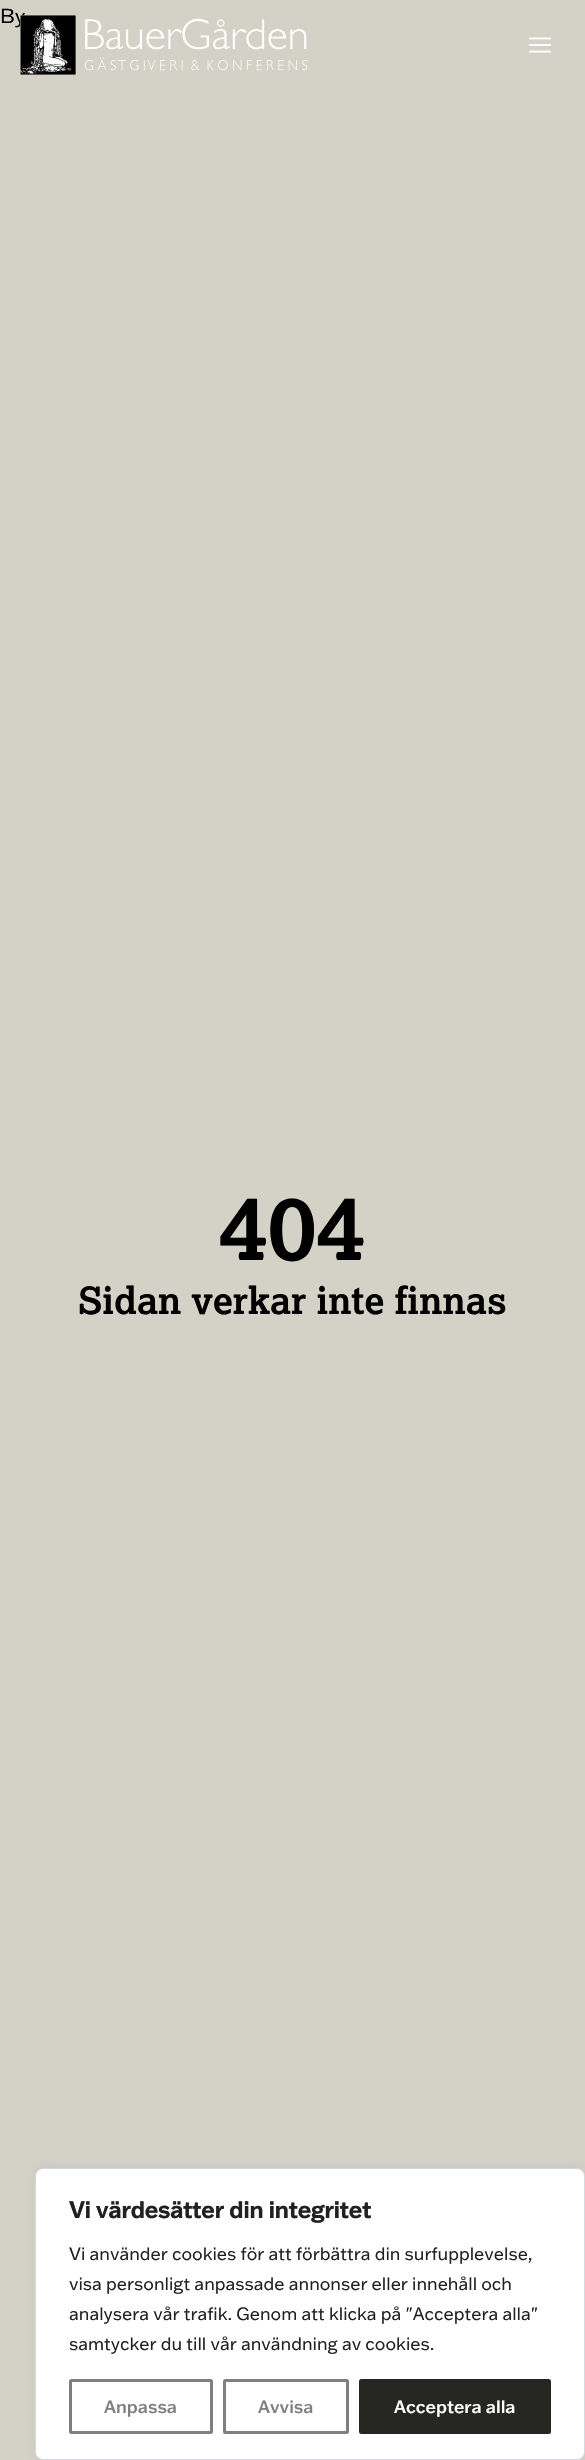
#include "include/core/SkBlurTypes.h"
#include "include/core/SkCanvas.h"
#include "include/core/SkData.h"
#include "include/core/SkFont.h"
#include "include/core/SkFontMgr.h"
#include "include/core/SkImage.h"
#include "include/core/SkMaskFilter.h"
#include "include/core/SkPaint.h"
#include "include/core/SkPathBuilder.h"
#include "include/core/SkTextBlob.h"
#include "include/effects/SkDashPathEffect.h"
#include "include/effects/SkGradientShader.h"
#include "include/utils/SkParsePath.h"

extern sk_sp<SkFontMgr> fontMgr;

void draw(SkCanvas* canvas) {
  SkPaint p;
  p.setAntiAlias(true);
  canvas->clear(SkColorSetRGB(212, 209, 198));
  canvas->drawImageRect(SkImages::DeferredFromEncodedData(SkData::MakeFromFileName("images/2.png")), SkRect::MakeLTRB(528, 37, 552, 53), SkSamplingOptions());
  p.setColor(SkColorSetARGB(77, 172, 171, 171));
  p.setMaskFilter(SkMaskFilter::MakeBlur(kNormal_SkBlurStyle, 6));
  canvas->drawRoundRect(SkRect::MakeLTRB(35, 2166, 585, 2459), 8, 8, p);
  p.setMaskFilter(nullptr);
  p.setColor(SK_ColorWHITE);
  canvas->drawRoundRect(SkRect::MakeLTRB(35.5f, 2168.5f, 584.5f, 2459.5f), 7.5f, 7.5f, p);
  p.setStyle(SkPaint::kStroke_Style);
  p.setStrokeWidth(1);
  p.setColor(SkColorSetRGB(212, 216, 223));
  canvas->drawRoundRect(SkRect::MakeLTRB(35.5f, 2168.5f, 584.5f, 2459.5f), 7.5f, 7.5f, p);
  p.setStrokeWidth(3);
  p.setColor(SkColorSetRGB(127, 127, 127));
  canvas->drawRoundRect(SkRect::MakeLTRB(70.5f, 2380.5f, 211.5f, 2432.5f), 1, 1, p);
  canvas->drawRoundRect(SkRect::MakeLTRB(224.5f, 2380.5f, 347.5f, 2432.5f), 1, 1, p);
  p.setStyle(SkPaint::kFill_Style);
  p.setColor(SkColorSetRGB(38, 39, 34));
  canvas->drawRoundRect(SkRect::MakeLTRB(360.5f, 2380.5f, 549.5f, 2432.5f), 1, 1, p);
  p.setStyle(SkPaint::kStroke_Style);
  canvas->drawRoundRect(SkRect::MakeLTRB(360.5f, 2380.5f, 549.5f, 2432.5f), 1, 1, p);
  SkFont font1(fontMgr->matchFamilyStyle("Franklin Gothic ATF", SkFontStyle::Normal()), 20);
  font1.setSubpixel(true);
  p.setStyle(SkPaint::kFill_Style);
  p.setColor(SK_ColorBLACK);
  canvas->drawString("By", 0, 23, font1, p);
  SkFont font2(fontMgr->matchFamilyStyle("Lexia", SkFontStyle::Bold()), 90);
  font2.setSubpixel(true);
  canvas->drawString("404", 219, 1260, font2, p);
  SkFont font3(fontMgr->matchFamilyStyle("Lexia", SkFontStyle::Bold()), 37.5f);
  font3.setSubpixel(true);
  canvas->drawString("Sidan verkar inte finnas", 78, 1314, font3, p);
  canvas->drawImageRect(SkImages::DeferredFromEncodedData(SkData::MakeFromFileName("images/1.png")), SkRect::MakeLTRB(20, 15, 308, 75), SkSamplingOptions());
  SkFont font4(fontMgr->matchFamilyStyle("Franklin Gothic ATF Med", SkFontStyle::Bold()), 22.5f);
  font4.setSubpixel(true);
  p.setColor(SkColorSetRGB(33, 33, 33));
  canvas->drawString("Vi värdesätter din integritet", 69, 2218, font4, p);
  SkFont font5(fontMgr->matchFamilyStyle("Franklin Gothic ATF", SkFontStyle::Normal()), 17.5f);
  font5.setSubpixel(true);
  canvas->drawString("Vi använder cookies för att förbättra din surfupplevelse,", 69, 2260, font5, p);
  canvas->drawString("visa personligt anpassade annonser eller innehåll och", 69, 2290, font5, p);
  canvas->drawString("analysera vår trafik. Genom att klicka på \"Acceptera alla\"", 69, 2320, font5, p);
  canvas->drawString("samtycker du till vår användning av cookies.", 69, 2350, font5, p);
  SkFont font6(fontMgr->matchFamilyStyle("Franklin Gothic ATF Med", SkFontStyle(500, SkFontStyle::kNormal_Width, SkFontStyle::kUpright_Slant)), 17.5f);
  font6.setSubpixel(true);
  p.setColor(SkColorSetRGB(127, 127, 127));
  canvas->drawString("Anpassa", 104, 2413, font6, p);
  canvas->drawString("Avvisa", 258, 2413, font6, p);
  p.setColor(SK_ColorWHITE);
  canvas->drawString("Acceptera alla", 394, 2413, font6, p);
}
